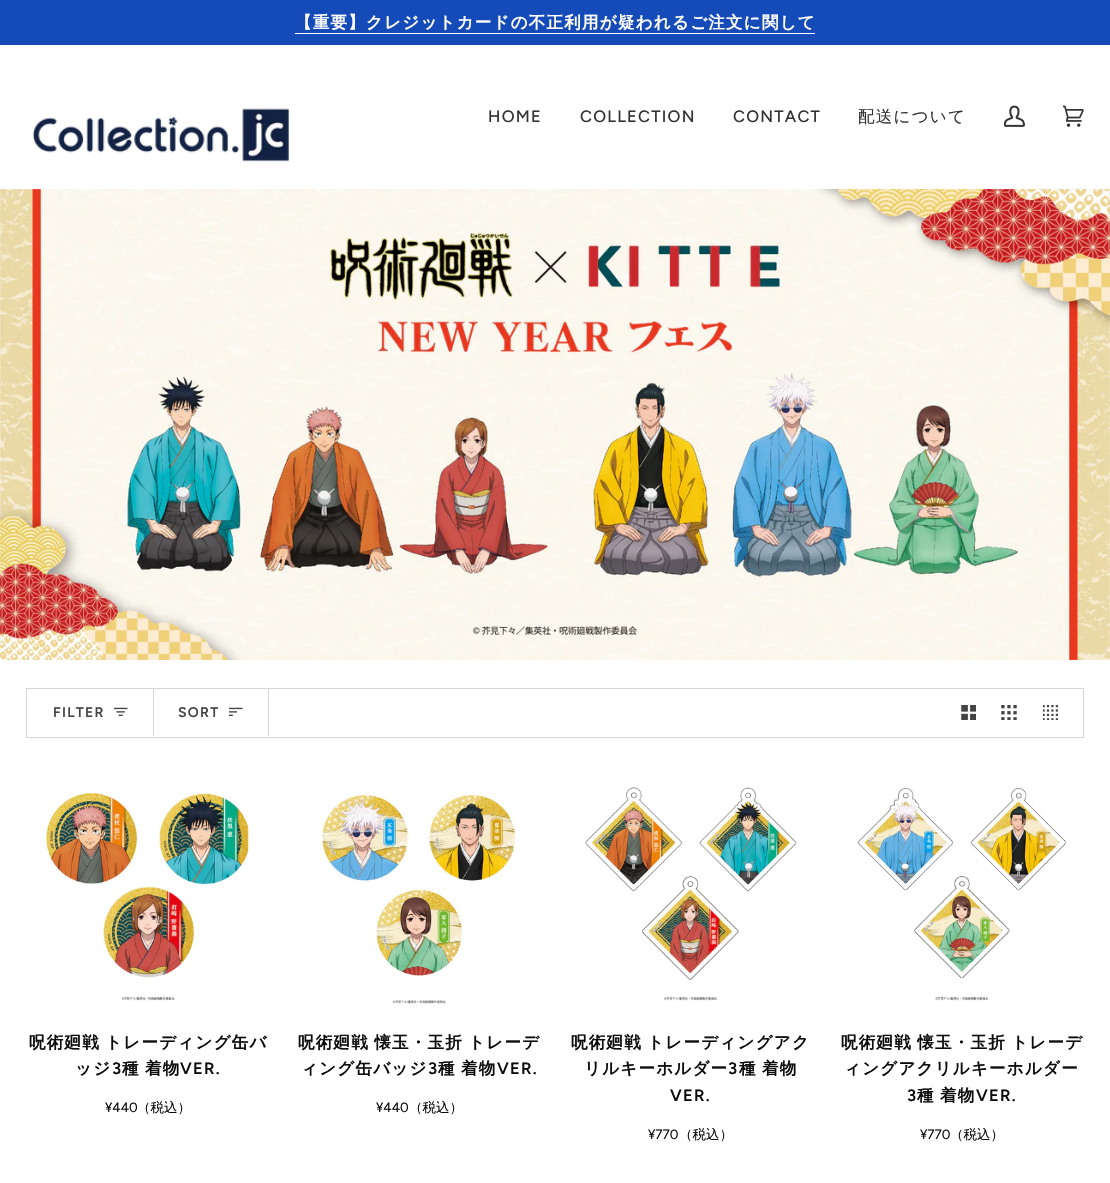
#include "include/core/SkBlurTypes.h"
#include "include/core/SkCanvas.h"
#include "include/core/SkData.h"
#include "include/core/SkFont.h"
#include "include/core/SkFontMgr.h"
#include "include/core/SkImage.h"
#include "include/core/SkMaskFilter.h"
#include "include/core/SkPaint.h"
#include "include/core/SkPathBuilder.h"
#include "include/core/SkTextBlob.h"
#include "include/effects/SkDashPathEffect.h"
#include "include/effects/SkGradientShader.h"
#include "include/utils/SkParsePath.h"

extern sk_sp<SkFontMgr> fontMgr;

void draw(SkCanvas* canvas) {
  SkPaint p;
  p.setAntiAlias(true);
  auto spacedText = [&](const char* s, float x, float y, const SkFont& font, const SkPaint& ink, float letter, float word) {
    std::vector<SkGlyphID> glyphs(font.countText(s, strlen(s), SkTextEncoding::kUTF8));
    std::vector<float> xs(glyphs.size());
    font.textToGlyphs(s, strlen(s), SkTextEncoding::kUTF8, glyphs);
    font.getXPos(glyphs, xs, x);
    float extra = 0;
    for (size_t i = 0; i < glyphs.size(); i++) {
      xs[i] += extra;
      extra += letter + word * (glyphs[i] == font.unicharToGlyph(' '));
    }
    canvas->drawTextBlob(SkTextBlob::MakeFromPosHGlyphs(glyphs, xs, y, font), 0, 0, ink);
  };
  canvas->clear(SK_ColorWHITE);
  p.setColor(SkColorSetRGB(21, 75, 185));
  canvas->drawRect(SkRect::MakeLTRB(0, 0, 1110, 45), p);
  p.setColor(SK_ColorWHITE);
  canvas->drawRect(SkRect::MakeLTRB(295, 33, 815, 34), p);
  canvas->drawImageRect(SkImages::DeferredFromEncodedData(SkData::MakeFromFileName("images/1.png")), SkRect::MakeLTRB(32, 104, 290, 162), SkSamplingOptions());
  canvas->drawImageRect(SkImages::DeferredFromEncodedData(SkData::MakeFromFileName("images/2.png")), SkRect::MakeLTRB(1004, 105, 1025, 127), SkSamplingOptions());
  canvas->drawImageRect(SkImages::DeferredFromEncodedData(SkData::MakeFromFileName("images/3.png")), SkRect::MakeLTRB(1063, 105, 1084, 127), SkSamplingOptions());
  canvas->drawImageRect(SkImages::DeferredFromEncodedData(SkData::MakeFromFileName("images/4.png")), SkRect::MakeLTRB(0, 189, 1110, 660), SkSamplingOptions());
  p.setStyle(SkPaint::kStroke_Style);
  p.setStrokeWidth(1);
  p.setColor(SkColorSetRGB(214, 214, 214));
  canvas->drawRect(SkRect::MakeLTRB(26.5f, 688.5f, 1083.5f, 737.5f), p);
  p.setStyle(SkPaint::kFill_Style);
  canvas->drawRect(SkRect::MakeLTRB(153, 689, 154, 736), p);
  canvas->drawImageRect(SkImages::DeferredFromEncodedData(SkData::MakeFromFileName("images/5.png")), SkRect::MakeLTRB(114, 707, 128, 716), SkSamplingOptions());
  canvas->drawRect(SkRect::MakeLTRB(268, 689, 269, 736), p);
  canvas->drawImageRect(SkImages::DeferredFromEncodedData(SkData::MakeFromFileName("images/6.png")), SkRect::MakeLTRB(229, 707, 243, 716), SkSamplingOptions());
  canvas->drawImageRect(SkImages::DeferredFromEncodedData(SkData::MakeFromFileName("images/7.png")), SkRect::MakeLTRB(961, 705, 976, 720), SkSamplingOptions());
  canvas->drawImageRect(SkImages::DeferredFromEncodedData(SkData::MakeFromFileName("images/8.png")), SkRect::MakeLTRB(1001, 705, 1017, 720), SkSamplingOptions());
  canvas->drawImageRect(SkImages::DeferredFromEncodedData(SkData::MakeFromFileName("images/9.png")), SkRect::MakeLTRB(1043, 705, 1058, 720), SkSamplingOptions());
  canvas->drawImageRect(SkImages::DeferredFromEncodedData(SkData::MakeFromFileName("images/10.png")), SkRect::MakeLTRB(44, 792, 249, 1001), SkSamplingOptions());
  canvas->drawImageRect(SkImages::DeferredFromEncodedData(SkData::MakeFromFileName("images/11.png")), SkRect::MakeLTRB(319, 792, 516, 1004), SkSamplingOptions());
  canvas->drawImageRect(SkImages::DeferredFromEncodedData(SkData::MakeFromFileName("images/12.png")), SkRect::MakeLTRB(585, 787, 797, 1001), SkSamplingOptions());
  canvas->drawImageRect(SkImages::DeferredFromEncodedData(SkData::MakeFromFileName("images/13.png")), SkRect::MakeLTRB(857, 787, 1066, 1001), SkSamplingOptions());
  SkFont font1(fontMgr->matchFamilyStyle("WenQuanYi Zen Hei", SkFontStyle::Bold()), 16.5f);
  font1.setSubpixel(true);
  p.setColor(SK_ColorWHITE);
  spacedText("【重要】クレジットカードの不正利用が疑われるご注文に関して", 295, 28, font1, p, 1.25f, 0);
  SkFont font2(fontMgr->matchFamilyStyle("Figtree", SkFontStyle(500, SkFontStyle::kNormal_Width, SkFontStyle::kUpright_Slant)), 16.5f);
  font2.setSubpixel(true);
  p.setColor(SkColorSetRGB(51, 51, 51));
  spacedText("HOME", 488, 122, font2, p, 1.25f, 0);
  spacedText("COLLECTION", 580, 122, font2, p, 1.25f, 0);
  spacedText("CONTACT", 733, 122, font2, p, 1.25f, 0);
  SkFont font3(fontMgr->matchFamilyStyle("WenQuanYi Zen Hei", SkFontStyle(500, SkFontStyle::kNormal_Width, SkFontStyle::kUpright_Slant)), 16.5f);
  font3.setSubpixel(true);
  spacedText("配送について", 858, 122, font3, p, 1.25f, 0);
  SkFont font4(fontMgr->matchFamilyStyle("Figtree", SkFontStyle(600, SkFontStyle::kNormal_Width, SkFontStyle::kUpright_Slant)), 14);
  font4.setSubpixel(true);
  p.setColor(SkColorSetRGB(68, 68, 68));
  spacedText("FILTER", 53, 717, font4, p, 1.25f, 0);
  spacedText("SORT", 178, 717, font4, p, 1.25f, 0);
  p.setColor(SkColorSetRGB(14, 12, 12));
  spacedText("呪術廻戦 トレーディング缶バ", 29, 1048, font1, p, 1.25f, -1);
  spacedText("ッジ", 75, 1074, font1, p, 1.25f, 0);
  SkFont font5(fontMgr->matchFamilyStyle("Figtree", SkFontStyle(600, SkFontStyle::kNormal_Width, SkFontStyle::kUpright_Slant)), 16.5f);
  font5.setSubpixel(true);
  spacedText("3", 112, 1074, font5, p, 1.25f, 0);
  spacedText("種 着物", 122, 1074, font1, p, 1.25f, -1);
  spacedText("VER.", 180, 1074, font5, p, 1.25f, 0);
  SkFont font6(fontMgr->matchFamilyStyle("Figtree", SkFontStyle::Normal()), 13.5f);
  font6.setSubpixel(true);
  canvas->drawString("¥440", 105, 1112, font6, p);
  SkFont font7(fontMgr->matchFamilyStyle("WenQuanYi Zen Hei", SkFontStyle(500, SkFontStyle::kNormal_Width, SkFontStyle::kUpright_Slant)), 13.5f);
  font7.setSubpixel(true);
  canvas->drawString("（税込）", 137, 1112, font7, p);
  spacedText("呪術廻戦 懐玉・玉折 トレーデ", 298, 1048, font1, p, 1.25f, -1);
  spacedText("ィング缶バッジ", 301, 1074, font1, p, 1.25f, 0);
  spacedText("3", 428, 1074, font5, p, 1.25f, 0);
  spacedText("種 着物", 438, 1074, font1, p, 1.25f, -1);
  spacedText("VER.", 497, 1074, font5, p, 1.25f, 0);
  canvas->drawString("¥440", 376, 1112, font6, p);
  canvas->drawString("（税込）", 409, 1112, font7, p);
  spacedText("呪術廻戦 トレーディングアク", 571, 1048, font1, p, 1.25f, -1);
  spacedText("リルキーホルダー", 584, 1074, font1, p, 1.25f, 0);
  spacedText("3", 728, 1074, font5, p, 1.25f, 0);
  spacedText("種 着物", 739, 1074, font1, p, 1.25f, -1);
  spacedText("VER.", 670, 1101, font5, p, 1.25f, 0);
  canvas->drawString("¥770", 648, 1139, font6, p);
  canvas->drawString("（税込）", 679, 1139, font7, p);
  spacedText("呪術廻戦 懐玉・玉折 トレーデ", 841, 1048, font1, p, 1.25f, -1);
  spacedText("ィングアクリルキーホルダー", 844, 1074, font1, p, 1.25f, 0);
  spacedText("3", 907, 1101, font5, p, 1.25f, 0);
  spacedText("種 着物", 917, 1101, font1, p, 1.25f, -1);
  spacedText("VER.", 976, 1101, font5, p, 1.25f, 0);
  canvas->drawString("¥770", 920, 1139, font6, p);
  canvas->drawString("（税込）", 950, 1139, font7, p);
}
